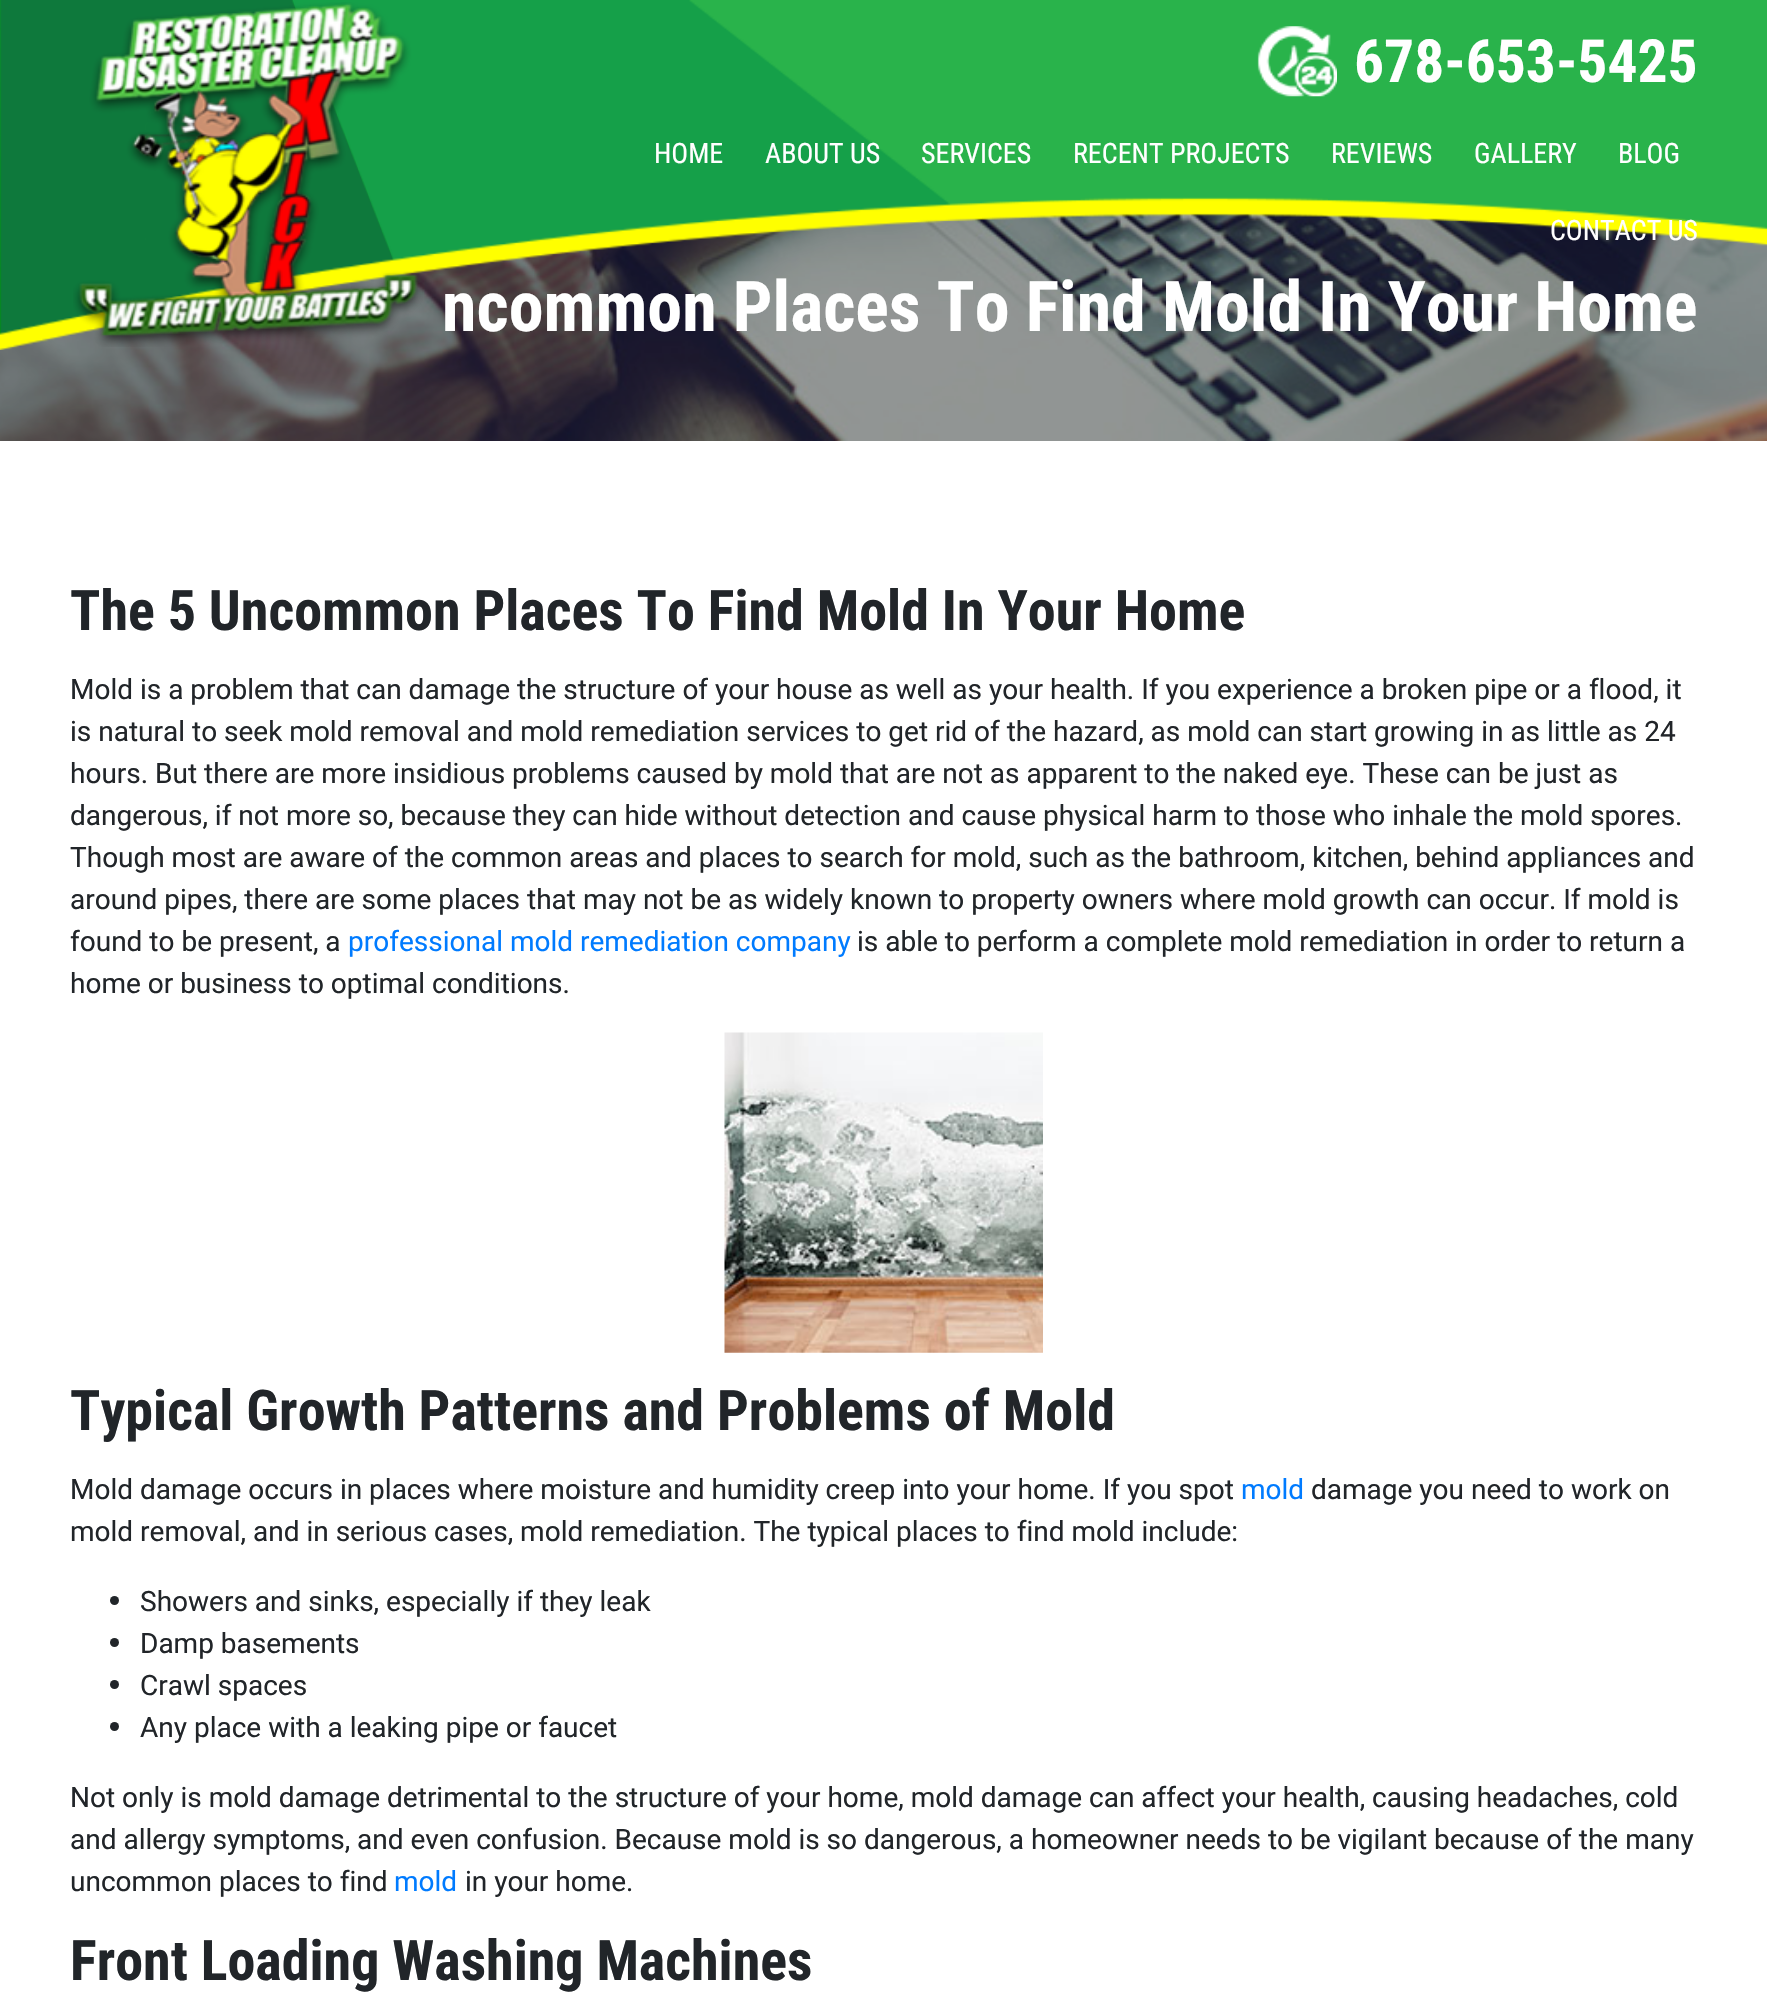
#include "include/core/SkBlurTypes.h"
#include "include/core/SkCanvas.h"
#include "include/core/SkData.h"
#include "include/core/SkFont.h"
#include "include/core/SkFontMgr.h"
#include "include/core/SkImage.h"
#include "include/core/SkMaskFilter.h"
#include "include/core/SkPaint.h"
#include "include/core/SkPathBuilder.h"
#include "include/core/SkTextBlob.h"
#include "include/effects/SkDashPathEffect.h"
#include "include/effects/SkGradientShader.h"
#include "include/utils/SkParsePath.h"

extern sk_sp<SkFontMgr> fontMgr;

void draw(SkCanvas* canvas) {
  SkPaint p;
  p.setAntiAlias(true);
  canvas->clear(SK_ColorWHITE);
  canvas->drawImageRect(SkImages::DeferredFromEncodedData(SkData::MakeFromFileName("images/4.png")), SkRect::MakeLTRB(0, 213, 1767, 441), SkSamplingOptions());
  canvas->drawImageRect(SkImages::DeferredFromEncodedData(SkData::MakeFromFileName("images/5.png")), SkRect::MakeLTRB(724, 1032, 1043, 1353), SkSamplingOptions());
  p.setColor(SkColorSetRGB(33, 37, 41));
  canvas->drawCircle(114.5f, 1600.5f, 4.5f, p);
  canvas->drawCircle(114.5f, 1642.5f, 4.5f, p);
  canvas->drawCircle(114.5f, 1684.5f, 4.5f, p);
  canvas->drawCircle(114.5f, 1726.5f, 4.5f, p);
  SkFont font1(fontMgr->matchFamilyStyle("Roboto Condensed", SkFontStyle::Bold()), 70);
  font1.setSubpixel(true);
  p.setColor(SK_ColorWHITE);
  canvas->drawString("ncommon Places To Find Mold In Your Home", 442, 331, font1, p);
  canvas->drawImageRect(SkImages::DeferredFromEncodedData(SkData::MakeFromFileName("images/1.png")), SkRect::MakeLTRB(0, 0, 1767, 350), SkSamplingOptions());
  SkFont font2(fontMgr->matchFamilyStyle("Roboto Condensed", SkFontStyle::Normal()), 28);
  font2.setSubpixel(true);
  canvas->drawString("CONTACT US", 1550, 240, font2, p);
  canvas->drawString("BLOG", 1618, 163, font2, p);
  canvas->drawString("GALLERY", 1474, 163, font2, p);
  canvas->drawString("REVIEWS", 1331, 163, font2, p);
  canvas->drawString("RECENT PROJECTS", 1073, 163, font2, p);
  canvas->drawString("SERVICES", 921, 163, font2, p);
  canvas->drawString("ABOUT US", 765, 163, font2, p);
  canvas->drawString("HOME", 654, 163, font2, p);
  SkFont font3(fontMgr->matchFamilyStyle("Roboto Condensed", SkFontStyle::Bold()), 59.5f);
  font3.setSubpixel(true);
  canvas->drawString("678-653-5425", 1354, 82, font3, p);
  canvas->drawImageRect(SkImages::DeferredFromEncodedData(SkData::MakeFromFileName("images/3.png")), SkRect::MakeLTRB(1257, 26, 1337, 97), SkSamplingOptions());
  canvas->drawImageRect(SkImages::DeferredFromEncodedData(SkData::MakeFromFileName("images/2.png")), SkRect::MakeLTRB(73, 2, 423, 347), SkSamplingOptions());
  SkFont font4(fontMgr->matchFamilyStyle("Roboto Condensed", SkFontStyle::Bold()), 56);
  font4.setSubpixel(true);
  p.setColor(SkColorSetRGB(33, 37, 41));
  canvas->drawString("The 5 Uncommon Places To Find Mold In Your Home", 70, 630, font4, p);
  SkFont font5(fontMgr->matchFamilyStyle("Roboto", SkFontStyle::Normal()), 28);
  font5.setSubpixel(true);
  canvas->drawString("Mold is a problem that can damage the structure of your house as well as your health. If you experience a broken pipe or a flood, it", 70, 699, font5, p);
  canvas->drawString("is natural to seek mold removal and mold remediation services to get rid of the hazard, as mold can start growing in as little as 24", 70, 741, font5, p);
  canvas->drawString("hours. But there are more insidious problems caused by mold that are not as apparent to the naked eye. These can be just as", 70, 783, font5, p);
  canvas->drawString("dangerous, if not more so, because they can hide without detection and cause physical harm to those who inhale the mold spores.", 70, 825, font5, p);
  canvas->drawString("Though most are aware of the common areas and places to search for mold, such as the bathroom, kitchen, behind appliances and", 70, 867, font5, p);
  canvas->drawString("around pipes, there are some places that may not be as widely known to property owners where mold growth can occur. If mold is", 70, 909, font5, p);
  canvas->drawString("found to be present, a", 70, 951, font5, p);
  p.setColor(SkColorSetRGB(0, 123, 255));
  canvas->drawString("professional mold remediation company", 348, 951, font5, p);
  p.setColor(SkColorSetRGB(33, 37, 41));
  canvas->drawString("is able to perform a complete mold remediation in order to return a", 857, 951, font5, p);
  canvas->drawString("home or business to optimal conditions.", 70, 993, font5, p);
  canvas->drawString("Typical Growth Patterns and Problems of Mold", 70, 1430, font4, p);
  canvas->drawString("Mold damage occurs in places where moisture and humidity creep into your home. If you spot", 70, 1499, font5, p);
  p.setColor(SkColorSetRGB(0, 123, 255));
  canvas->drawString("mold", 1241, 1499, font5, p);
  p.setColor(SkColorSetRGB(33, 37, 41));
  canvas->drawString("damage you need to work on", 1311, 1499, font5, p);
  canvas->drawString("mold removal, and in serious cases, mold remediation. The typical places to find mold include:", 70, 1541, font5, p);
  canvas->drawString("Showers and sinks, especially if they leak", 140, 1611, font5, p);
  canvas->drawString("Damp basements", 140, 1653, font5, p);
  canvas->drawString("Crawl spaces", 140, 1695, font5, p);
  canvas->drawString("Any place with a leaking pipe or faucet", 140, 1737, font5, p);
  canvas->drawString("Not only is mold damage detrimental to the structure of your home, mold damage can affect your health, causing headaches, cold", 70, 1807, font5, p);
  canvas->drawString("and allergy symptoms, and even confusion. Because mold is so dangerous, a homeowner needs to be vigilant because of the many", 70, 1849, font5, p);
  canvas->drawString("uncommon places to find", 70, 1891, font5, p);
  p.setColor(SkColorSetRGB(0, 123, 255));
  canvas->drawString("mold", 394, 1891, font5, p);
  p.setColor(SkColorSetRGB(33, 37, 41));
  canvas->drawString("in your home.", 465, 1891, font5, p);
  canvas->drawString("Front Loading Washing Machines", 70, 1980, font4, p);
}
